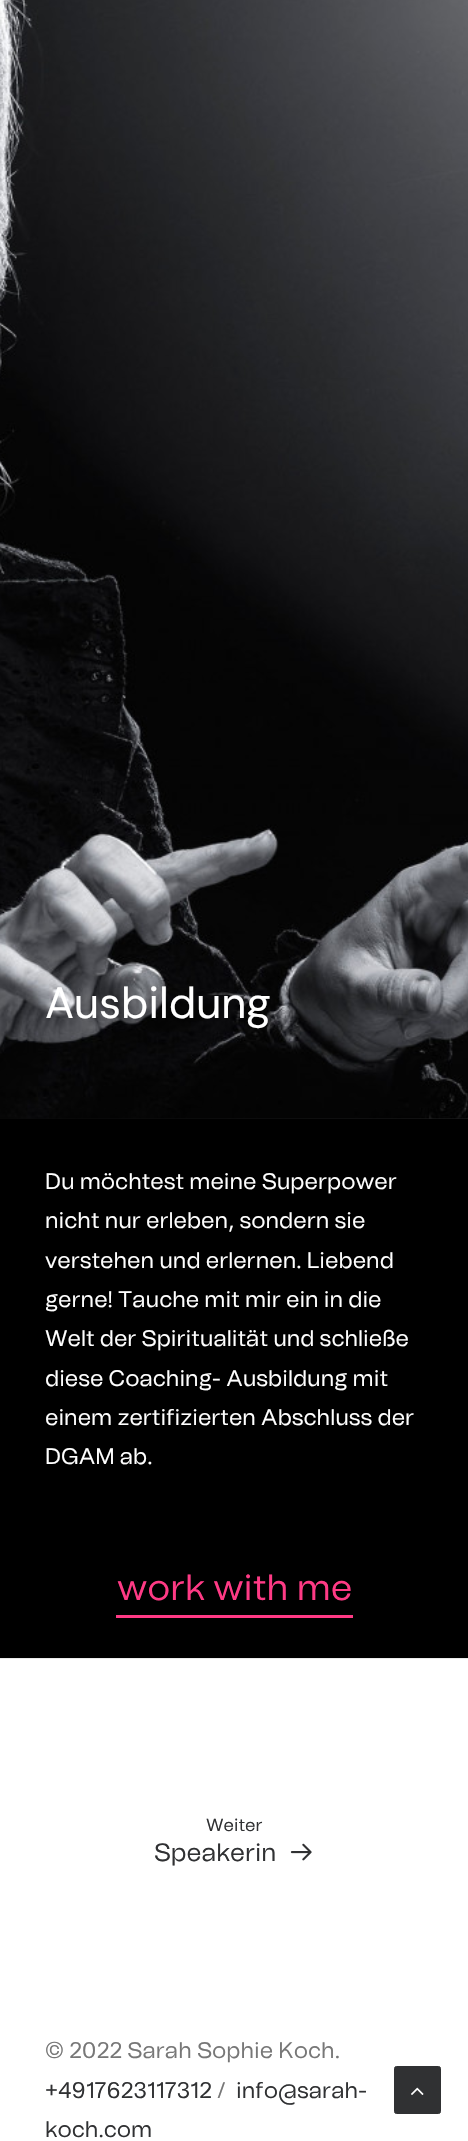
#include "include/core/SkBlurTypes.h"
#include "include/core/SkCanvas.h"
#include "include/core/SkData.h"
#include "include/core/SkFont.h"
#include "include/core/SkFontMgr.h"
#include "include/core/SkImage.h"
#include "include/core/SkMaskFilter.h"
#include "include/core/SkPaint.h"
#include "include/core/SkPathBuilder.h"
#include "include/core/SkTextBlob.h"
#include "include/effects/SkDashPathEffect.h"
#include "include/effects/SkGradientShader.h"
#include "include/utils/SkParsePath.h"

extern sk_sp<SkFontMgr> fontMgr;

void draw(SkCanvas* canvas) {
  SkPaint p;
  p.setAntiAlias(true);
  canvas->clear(SK_ColorWHITE);
  p.setColor(SK_ColorBLACK);
  canvas->drawRect(SkRect::MakeLTRB(0, 1118, 468, 1658), p);
  canvas->drawImageRect(SkImages::DeferredFromEncodedData(SkData::MakeFromFileName("images/1.png")), SkRect::MakeLTRB(0, 0, 468, 1119), SkSamplingOptions());
  p.setColor(SkColorSetRGB(255, 58, 133));
  canvas->drawRect(SkRect::MakeLTRB(116, 1615, 353, 1618), p);
  p.setColor(SkColorSetRGB(234, 234, 234));
  canvas->drawRect(SkRect::MakeLTRB(0, 1658, 468, 1659), p);
  canvas->drawImageRect(SkImages::DeferredFromEncodedData(SkData::MakeFromFileName("images/2.png")), SkRect::MakeLTRB(290, 1843, 312, 1861), SkSamplingOptions());
  p.setColor(SkColorSetRGB(48, 49, 51));
  canvas->drawRoundRect(SkRect::MakeLTRB(394.5f, 2066.5f, 440.5f, 2113.5f), 2, 2, p);
  p.setStyle(SkPaint::kStroke_Style);
  p.setStrokeWidth(1);
  canvas->drawRoundRect(SkRect::MakeLTRB(394.5f, 2066.5f, 440.5f, 2113.5f), 2, 2, p);
  canvas->drawImageRect(SkImages::DeferredFromEncodedData(SkData::MakeFromFileName("images/3.png")), SkRect::MakeLTRB(411, 2087, 424, 2095), SkSamplingOptions());
  SkFont font1(fontMgr->matchFamilyStyle("DM Sans", SkFontStyle::Normal()), 43.75f);
  font1.setSubpixel(true);
  p.setStyle(SkPaint::kFill_Style);
  p.setColor(SK_ColorWHITE);
  canvas->drawString("Ausbildung", 45, 1018, font1, p);
  SkFont font2(fontMgr->matchFamilyStyle("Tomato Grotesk", SkFontStyle::Normal()), 22.5f);
  font2.setSubpixel(true);
  canvas->drawString("Du möchtest meine Superpower", 45, 1189, font2, p);
  canvas->drawString("nicht nur erleben, sondern sie", 45, 1228, font2, p);
  canvas->drawString("verstehen und erlernen. Liebend", 45, 1268, font2, p);
  canvas->drawString("gerne! Tauche mit mir ein in die", 45, 1307, font2, p);
  canvas->drawString("Welt der Spiritualität und schließe", 45, 1346, font2, p);
  canvas->drawString("diese Coaching- Ausbildung mit", 45, 1386, font2, p);
  canvas->drawString("einem zertifizierten Abschluss der", 45, 1425, font2, p);
  canvas->drawString("DGAM ab.", 45, 1464, font2, p);
  SkFont font3(fontMgr->matchFamilyStyle("Tomato Grotesk", SkFontStyle::Normal()), 36.25f);
  font3.setSubpixel(true);
  p.setColor(SkColorSetRGB(255, 58, 133));
  canvas->drawString("work with me", 117, 1600, font3, p);
  SkFont font4(fontMgr->matchFamilyStyle("Tomato Grotesk", SkFontStyle::Normal()), 17.5f);
  font4.setSubpixel(true);
  p.setColor(SkColorSetRGB(48, 49, 51));
  canvas->drawString("Weiter", 206, 1831, font4, p);
  SkFont font5(fontMgr->matchFamilyStyle("Tomato Grotesk", SkFontStyle::Normal()), 25);
  font5.setSubpixel(true);
  canvas->drawString("Speakerin", 154, 1861, font5, p);
  p.setColor(SkColorSetRGB(119, 119, 119));
  canvas->drawString("© 2022 Sarah Sophie Koch.", 45, 2058, font2, p);
  p.setColor(SkColorSetRGB(48, 49, 51));
  canvas->drawString("+4917623117312", 45, 2098, font2, p);
  p.setColor(SkColorSetRGB(119, 119, 119));
  canvas->drawString("/", 217, 2098, font2, p);
  p.setColor(SkColorSetRGB(48, 49, 51));
  canvas->drawString("info@sarah-", 236, 2098, font2, p);
  canvas->drawString("koch.com", 45, 2137, font2, p);
}
